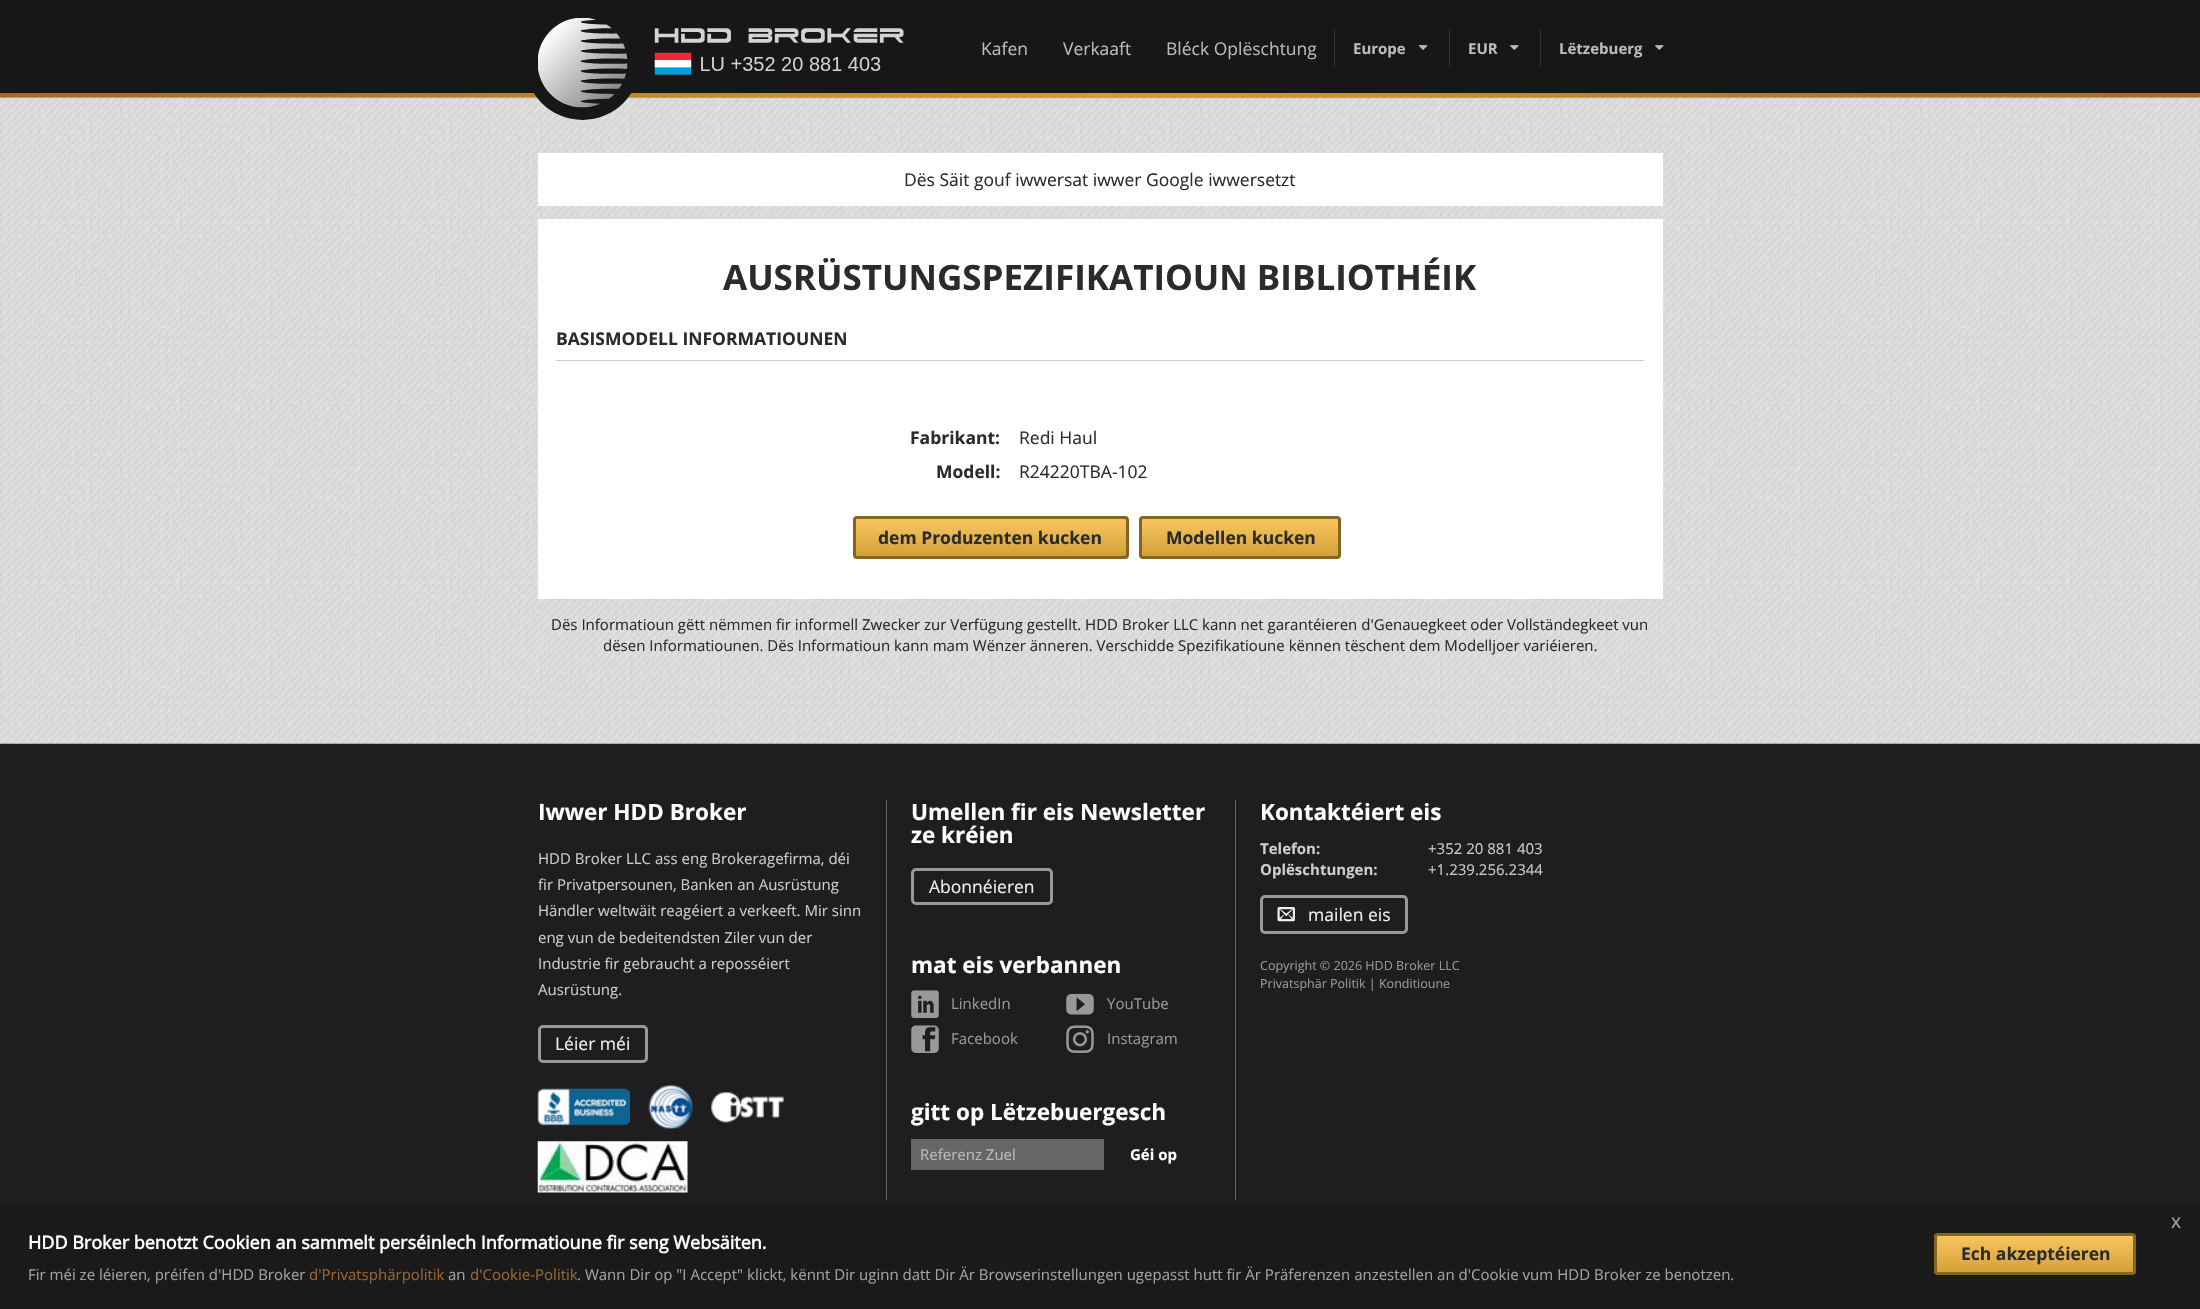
#include "include/core/SkBlurTypes.h"
#include "include/core/SkCanvas.h"
#include "include/core/SkData.h"
#include "include/core/SkFont.h"
#include "include/core/SkFontMgr.h"
#include "include/core/SkImage.h"
#include "include/core/SkMaskFilter.h"
#include "include/core/SkPaint.h"
#include "include/core/SkPathBuilder.h"
#include "include/core/SkTextBlob.h"
#include "include/effects/SkDashPathEffect.h"
#include "include/effects/SkGradientShader.h"
#include "include/utils/SkParsePath.h"

extern sk_sp<SkFontMgr> fontMgr;

void draw(SkCanvas* canvas) {
  SkPaint p;
  p.setAntiAlias(true);
  canvas->clear(SK_ColorWHITE);
  p.setColor(SkColorSetRGB(23, 23, 23));
  canvas->drawRect(SkRect::MakeLTRB(0, 0, 2200, 93), p);
  canvas->drawImageRect(SkImages::DeferredFromEncodedData(SkData::MakeFromFileName("images/4.png")), SkRect::MakeLTRB(0, 97, 2200, 744), SkSamplingOptions());
  p.setColor(SkColorSetARGB(69, 0, 0, 0));
  p.setMaskFilter(SkMaskFilter::MakeBlur(kNormal_SkBlurStyle, 0.5f));
  canvas->drawRect(SkRect::MakeLTRB(0, 94, 2200, 98), p);
  p.setMaskFilter(nullptr);
  {
    const SkColor colors[] = {SkColorSetRGB(158, 109, 21), SkColorSetRGB(174, 121, 25), SkColorSetRGB(209, 145, 32), SkColorSetRGB(221, 154, 34), SkColorSetRGB(209, 145, 32), SkColorSetRGB(174, 121, 25), SkColorSetRGB(162, 113, 22)};
    const float stops[] = {0, 0.15f, 0.38f, 0.5f, 0.62f, 0.85f, 1};
    const SkPoint ends[] = {{0, 94}, {2200, 94}};
    p.setShader(SkGradientShader::MakeLinear(ends, colors, stops, 7, SkTileMode::kClamp));
    p.setAlpha(255);
  }
  canvas->drawRect(SkRect::MakeLTRB(0, 93, 2200, 97), p);
  p.setShader(nullptr);
  p.setColor(SkColorSetRGB(23, 23, 23));
  canvas->drawCircle(582.5f, 62.5f, 57.5f, p);
  canvas->drawImageRect(SkImages::DeferredFromEncodedData(SkData::MakeFromFileName("images/1.png")), SkRect::MakeLTRB(538, 18, 904, 108), SkSamplingOptions());
  p.setColor(SkColorSetRGB(51, 51, 51));
  canvas->drawRect(SkRect::MakeLTRB(1334, 30, 1335, 66), p);
  canvas->drawImageRect(SkImages::DeferredFromEncodedData(SkData::MakeFromFileName("images/2.png")), SkRect::MakeLTRB(1418, 45, 1428, 50), SkSamplingOptions());
  canvas->drawRect(SkRect::MakeLTRB(1449, 30, 1450, 66), p);
  canvas->drawImageRect(SkImages::DeferredFromEncodedData(SkData::MakeFromFileName("images/3.png")), SkRect::MakeLTRB(1510, 45, 1519, 50), SkSamplingOptions());
  canvas->drawRect(SkRect::MakeLTRB(1540, 30, 1541, 66), p);
  canvas->drawImageRect(SkImages::DeferredFromEncodedData(SkData::MakeFromFileName("images/3.png")), SkRect::MakeLTRB(1655, 45, 1664, 50), SkSamplingOptions());
  p.setColor(SkColorSetARGB(61, 0, 0, 0));
  canvas->drawRect(SkRect::MakeLTRB(0, 743, 2200, 744), p);
  p.setColor(SK_ColorWHITE);
  canvas->drawRect(SkRect::MakeLTRB(538, 153, 1663, 206), p);
  canvas->drawRect(SkRect::MakeLTRB(538, 219, 1663, 599), p);
  p.setColor(SkColorSetRGB(204, 204, 204));
  canvas->drawRect(SkRect::MakeLTRB(556, 360, 1644, 361), p);
  {
    const SkColor colors[] = {SkColorSetRGB(210, 159, 57), SkColorSetRGB(249, 198, 96)};
    const float stops[] = {0, 1};
    const SkPoint ends[] = {{991, 556}, {991, 519}};
    p.setShader(SkGradientShader::MakeLinear(ends, colors, stops, 2, SkTileMode::kClamp));
    p.setAlpha(255);
  }
  canvas->drawRect(SkRect::MakeLTRB(853, 519, 1129, 556), p);
  p.setStyle(SkPaint::kStroke_Style);
  p.setStrokeWidth(3);
  p.setShader(nullptr);
  p.setColor(SkColorSetRGB(134, 101, 35));
  canvas->drawRoundRect(SkRect::MakeLTRB(854.5f, 517.5f, 1127.5f, 557.5f), 2.5f, 2.5f, p);
  p.setStyle(SkPaint::kFill_Style);
  {
    const SkColor colors[] = {SkColorSetRGB(210, 159, 57), SkColorSetRGB(249, 198, 96)};
    const float stops[] = {0, 1};
    const SkPoint ends[] = {{1240, 556}, {1240, 519}};
    p.setShader(SkGradientShader::MakeLinear(ends, colors, stops, 2, SkTileMode::kClamp));
    p.setAlpha(255);
  }
  canvas->drawRect(SkRect::MakeLTRB(1139, 519, 1341, 556), p);
  p.setStyle(SkPaint::kStroke_Style);
  p.setShader(nullptr);
  p.setColor(SkColorSetRGB(134, 101, 35));
  canvas->drawRoundRect(SkRect::MakeLTRB(1140.5f, 517.5f, 1339.5f, 557.5f), 2.5f, 2.5f, p);
  p.setStyle(SkPaint::kFill_Style);
  p.setColor(SkColorSetRGB(30, 30, 30));
  canvas->drawRect(SkRect::MakeLTRB(0, 744, 2200, 1205), p);
  p.setColor(SkColorSetRGB(26, 26, 26));
  canvas->drawRect(SkRect::MakeLTRB(0, 1205, 2200, 1309), p);
  p.setStyle(SkPaint::kStroke_Style);
  p.setColor(SkColorSetRGB(153, 153, 153));
  canvas->drawRoundRect(SkRect::MakeLTRB(539.5f, 1026.5f, 646.5f, 1061.5f), 3.5f, 3.5f, p);
  canvas->drawImageRect(SkImages::DeferredFromEncodedData(SkData::MakeFromFileName("images/5.png")), SkRect::MakeLTRB(537, 1088, 630, 1126), SkSamplingOptions());
  canvas->drawImageRect(SkImages::DeferredFromEncodedData(SkData::MakeFromFileName("images/6.png")), SkRect::MakeLTRB(648, 1085, 693, 1129), SkSamplingOptions());
  canvas->drawImageRect(SkImages::DeferredFromEncodedData(SkData::MakeFromFileName("images/7.png")), SkRect::MakeLTRB(711, 1092, 784, 1123), SkSamplingOptions());
  canvas->drawImageRect(SkImages::DeferredFromEncodedData(SkData::MakeFromFileName("images/8.png")), SkRect::MakeLTRB(537, 1141, 688, 1193), SkSamplingOptions());
  p.setStyle(SkPaint::kFill_Style);
  p.setColor(SkColorSetRGB(102, 102, 102));
  canvas->drawRect(SkRect::MakeLTRB(886, 800, 887, 1200), p);
  p.setStyle(SkPaint::kStroke_Style);
  p.setColor(SkColorSetRGB(153, 153, 153));
  canvas->drawRoundRect(SkRect::MakeLTRB(912.5f, 869.5f, 1051.5f, 903.5f), 3.5f, 3.5f, p);
  canvas->drawImageRect(SkImages::DeferredFromEncodedData(SkData::MakeFromFileName("images/9.png")), SkRect::MakeLTRB(911, 990, 939, 1018), SkSamplingOptions());
  canvas->drawImageRect(SkImages::DeferredFromEncodedData(SkData::MakeFromFileName("images/10.png")), SkRect::MakeLTRB(1066, 993, 1094, 1015), SkSamplingOptions());
  canvas->drawImageRect(SkImages::DeferredFromEncodedData(SkData::MakeFromFileName("images/11.png")), SkRect::MakeLTRB(911, 1025, 939, 1053), SkSamplingOptions());
  canvas->drawImageRect(SkImages::DeferredFromEncodedData(SkData::MakeFromFileName("images/12.png")), SkRect::MakeLTRB(1066, 1025, 1094, 1053), SkSamplingOptions());
  p.setStyle(SkPaint::kFill_Style);
  p.setColor(SkColorSetRGB(102, 102, 102));
  canvas->drawRect(SkRect::MakeLTRB(911, 1139, 1104, 1170), p);
  canvas->drawRect(SkRect::MakeLTRB(1235, 800, 1236, 1200), p);
  p.setStyle(SkPaint::kStroke_Style);
  p.setColor(SkColorSetRGB(153, 153, 153));
  canvas->drawRoundRect(SkRect::MakeLTRB(1261.5f, 896.5f, 1406.5f, 932.5f), 3.5f, 3.5f, p);
  canvas->drawImageRect(SkImages::DeferredFromEncodedData(SkData::MakeFromFileName("images/13.png")), SkRect::MakeLTRB(1277, 907, 1295, 922), SkSamplingOptions());
  canvas->save();
  canvas->clipPath(SkPathBuilder().moveTo(1938, 1233).lineTo(2132, 1233).cubicTo(2134, 1233, 2136, 1235, 2136, 1237).lineTo(2136, 1271).cubicTo(2136, 1273, 2134, 1275, 2132, 1275).lineTo(1938, 1275).cubicTo(1936, 1275, 1934, 1273, 1934, 1271).lineTo(1934, 1237).cubicTo(1934, 1235, 1936, 1233, 1938, 1233).close().detach(), true);
  p.setStyle(SkPaint::kFill_Style);
  {
    const SkColor colors[] = {SkColorSetRGB(210, 159, 57), SkColorSetRGB(249, 198, 96)};
    const float stops[] = {0, 1};
    const SkPoint ends[] = {{2035, 1273}, {2035, 1235}};
    p.setShader(SkGradientShader::MakeLinear(ends, colors, stops, 2, SkTileMode::kClamp));
    p.setAlpha(255);
  }
  canvas->drawRect(SkRect::MakeLTRB(1934, 1235, 2136, 1273), p);
  canvas->restore();
  p.setStyle(SkPaint::kStroke_Style);
  p.setShader(nullptr);
  p.setColor(SkColorSetRGB(134, 101, 35));
  canvas->drawRoundRect(SkRect::MakeLTRB(1935.5f, 1234.5f, 2134.5f, 1273.5f), 2.5f, 2.5f, p);
  SkFont font1(fontMgr->matchFamilyStyle("Open Sans", SkFontStyle::Normal()), 17.5f);
  font1.setSubpixel(true);
  p.setStyle(SkPaint::kFill_Style);
  p.setColor(SkColorSetRGB(187, 187, 187));
  canvas->drawString("Kafen", 981, 55, font1, p);
  canvas->drawString("Verkaaft", 1063, 55, font1, p);
  canvas->drawString("Bléck Oplëschtung", 1166, 55, font1, p);
  SkFont font2(fontMgr->matchFamilyStyle("Open Sans", SkFontStyle::Bold()), 15);
  font2.setSubpixel(true);
  canvas->drawString("Europe", 1353, 54, font2, p);
  canvas->drawString("EUR", 1468, 54, font2, p);
  canvas->drawString("Lëtzebuerg", 1559, 54, font2, p);
  p.setColor(SkColorSetRGB(43, 43, 43));
  canvas->drawString("Dës Säit gouf iwwersat iwwer Google iwwersetzt", 904, 186, font1, p);
  SkFont font3(fontMgr->matchFamilyStyle("Open Sans", SkFontStyle::Bold()), 35);
  font3.setSubpixel(true);
  canvas->drawString("AUSRÜSTUNGSPEZIFIKATIOUN BIBLIOTHÉIK", 723, 290, font3, p);
  SkFont font4(fontMgr->matchFamilyStyle("Open Sans", SkFontStyle::Bold()), 17.5f);
  font4.setSubpixel(true);
  canvas->drawString("BASISMODELL INFORMATIOUNEN", 556, 345, font4, p);
  canvas->drawString("Fabrikant:", 910, 444, font4, p);
  canvas->drawString("Redi Haul", 1019, 444, font1, p);
  canvas->drawString("Modell:", 936, 478, font4, p);
  canvas->drawString("R24220TBA-102", 1019, 478, font1, p);
  canvas->drawString("dem Produzenten kucken", 878, 544, font4, p);
  canvas->drawString("Modellen kucken", 1166, 544, font4, p);
  SkFont font5(fontMgr->matchFamilyStyle("Open Sans", SkFontStyle::Normal()), 15);
  font5.setSubpixel(true);
  canvas->drawString("Dës Informatioun gëtt nëmmen fir informell Zwecker zur Verfügung gestellt. HDD Broker LLC kann net garantéieren d'Genauegkeet oder Vollständegkeet vun", 551, 630, font5, p);
  canvas->drawString("dësen Informatiounen. Dës Informatioun kann mam Wënzer änneren. Verschidde Spezifikatioune kënnen tëschent dem Modelljoer variéieren.", 603, 651, font5, p);
  SkFont font6(fontMgr->matchFamilyStyle("Open Sans", SkFontStyle::Bold()), 22.5f);
  font6.setSubpixel(true);
  p.setColor(SK_ColorWHITE);
  canvas->drawString("Iwwer HDD Broker", 538, 820, font6, p);
  p.setColor(SkColorSetRGB(204, 204, 204));
  canvas->drawString("HDD Broker LLC ass eng Brokeragefirma, déi", 538, 864, font5, p);
  canvas->drawString("fir Privatpersounen, Banken an Ausrüstung", 538, 890, font5, p);
  canvas->drawString("Händler weltwäit reagéiert a verkeeft. Mir sinn", 538, 916, font5, p);
  canvas->drawString("eng vun de bedeitendsten Ziler vun der", 538, 943, font5, p);
  canvas->drawString("Industrie fir gebraucht a reposséiert", 538, 969, font5, p);
  canvas->drawString("Ausrüstung.", 538, 995, font5, p);
  p.setColor(SkColorSetRGB(238, 238, 238));
  canvas->drawString("Léier méi", 555, 1050, font1, p);
  p.setColor(SK_ColorWHITE);
  canvas->drawString("Umellen fir eis Newsletter", 911, 820, font6, p);
  canvas->drawString("ze kréien", 911, 843, font6, p);
  p.setColor(SkColorSetRGB(238, 238, 238));
  canvas->drawString("Abonnéieren", 929, 893, font1, p);
  p.setColor(SK_ColorWHITE);
  canvas->drawString("mat eis verbannen", 911, 973, font6, p);
  p.setColor(SkColorSetRGB(153, 153, 153));
  canvas->drawString("LinkedIn", 951, 1009, font5, p);
  canvas->drawString("YouTube", 1107, 1009, font5, p);
  canvas->drawString("Facebook", 951, 1044, font5, p);
  canvas->drawString("Instagram", 1107, 1044, font5, p);
  p.setColor(SK_ColorWHITE);
  canvas->drawString("gitt op Lëtzebuergesch", 911, 1120, font6, p);
  p.setColor(SkColorSetRGB(187, 187, 187));
  canvas->drawString("Referenz Zuel", 920, 1160, font5, p);
  p.setColor(SK_ColorWHITE);
  canvas->drawString("Géi op", 1130, 1160, font2, p);
  canvas->drawString("Kontaktéiert eis", 1260, 820, font6, p);
  p.setColor(SkColorSetRGB(204, 204, 204));
  canvas->drawString("Telefon:", 1260, 854, font2, p);
  canvas->drawString("+352 20 881 403", 1428, 854, font5, p);
  canvas->drawString("Oplëschtungen:", 1260, 875, font2, p);
  canvas->drawString("+1.239.256.2344", 1428, 875, font5, p);
  p.setColor(SkColorSetRGB(238, 238, 238));
  canvas->drawString("mailen eis", 1308, 921, font1, p);
  SkFont font7(fontMgr->matchFamilyStyle("Open Sans", SkFontStyle::Normal()), 12.5f);
  font7.setSubpixel(true);
  p.setColor(SkColorSetRGB(153, 153, 153));
  canvas->drawString("Copyright © 2026 HDD Broker LLC", 1260, 970, font7, p);
  canvas->drawString("Privatsphär Politik | Konditioune", 1260, 988, font7, p);
  SkFont font8(fontMgr->matchFamilyStyle("Liberation Sans", SkFontStyle::Normal()), 20);
  font8.setSubpixel(true);
  p.setColor(SkColorSetRGB(162, 162, 162));
  canvas->drawString("x", 2171, 1228, font8, p);
  SkFont font9(fontMgr->matchFamilyStyle("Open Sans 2", SkFontStyle::Bold()), 18);
  font9.setSubpixel(true);
  p.setColor(SK_ColorWHITE);
  canvas->drawString("HDD Broker benotzt Cookien an sammelt perséinlech Informatioune fir seng Websäiten.", 28, 1249, font9, p);
  p.setColor(SkColorSetRGB(162, 162, 162));
  canvas->drawString("Fir méi ze léieren, préifen d'HDD Broker", 28, 1280, font5, p);
  p.setColor(SkColorSetRGB(153, 102, 51));
  canvas->drawString("d'Privatsphärpolitik", 309, 1280, font5, p);
  p.setColor(SkColorSetRGB(162, 162, 162));
  canvas->drawString("an", 448, 1280, font5, p);
  p.setColor(SkColorSetRGB(153, 102, 51));
  canvas->drawString("d'Cookie-Politik", 470, 1280, font5, p);
  p.setColor(SkColorSetRGB(162, 162, 162));
  canvas->drawString(". Wann Dir op \"I Accept\" klickt, kënnt Dir uginn datt Dir Är Browserinstellungen ugepasst hutt fir Är Präferenzen anzestellen an d'Cookie vum HDD Broker ze benotzen.", 577, 1280, font5, p);
  p.setColor(SkColorSetRGB(43, 43, 43));
  canvas->drawString("Ech akzeptéieren", 1961, 1260, font4, p);
}
